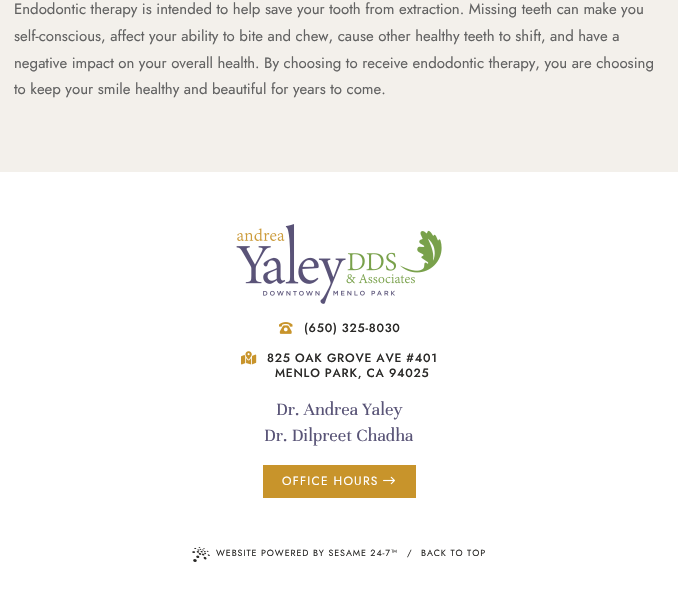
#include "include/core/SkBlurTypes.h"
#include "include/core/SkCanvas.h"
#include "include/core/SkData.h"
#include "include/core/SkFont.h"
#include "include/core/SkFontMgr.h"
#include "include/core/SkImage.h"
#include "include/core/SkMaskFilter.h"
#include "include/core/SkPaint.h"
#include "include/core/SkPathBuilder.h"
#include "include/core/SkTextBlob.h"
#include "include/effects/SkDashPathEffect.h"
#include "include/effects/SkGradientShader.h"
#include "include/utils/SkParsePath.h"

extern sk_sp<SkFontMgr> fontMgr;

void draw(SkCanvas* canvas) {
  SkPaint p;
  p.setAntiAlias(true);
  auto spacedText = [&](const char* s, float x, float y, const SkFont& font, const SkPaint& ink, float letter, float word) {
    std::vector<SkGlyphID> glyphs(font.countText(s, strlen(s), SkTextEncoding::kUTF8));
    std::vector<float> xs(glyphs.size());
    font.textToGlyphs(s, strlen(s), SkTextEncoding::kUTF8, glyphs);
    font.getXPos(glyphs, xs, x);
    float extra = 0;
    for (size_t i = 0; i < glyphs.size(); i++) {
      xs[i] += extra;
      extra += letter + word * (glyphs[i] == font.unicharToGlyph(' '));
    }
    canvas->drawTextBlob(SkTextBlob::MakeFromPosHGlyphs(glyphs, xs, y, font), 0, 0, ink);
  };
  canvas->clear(SkColorSetRGB(243, 240, 235));
  p.setColor(SK_ColorWHITE);
  canvas->drawRect(SkRect::MakeLTRB(0, 172, 678, 608), p);
  canvas->drawImageRect(SkImages::DeferredFromEncodedData(SkData::MakeFromFileName("images/1.png")), SkRect::MakeLTRB(236, 224, 442, 304), SkSamplingOptions());
  canvas->drawImageRect(SkImages::DeferredFromEncodedData(SkData::MakeFromFileName("images/2.png")), SkRect::MakeLTRB(279, 322, 293, 334), SkSamplingOptions());
  canvas->drawImageRect(SkImages::DeferredFromEncodedData(SkData::MakeFromFileName("images/3.png")), SkRect::MakeLTRB(241, 351, 257, 365), SkSamplingOptions());
  p.setColor(SkColorSetRGB(200, 148, 43));
  canvas->drawRect(SkRect::MakeLTRB(263, 465, 416, 498), p);
  canvas->drawImageRect(SkImages::DeferredFromEncodedData(SkData::MakeFromFileName("images/4.png")), SkRect::MakeLTRB(383, 476, 395, 485), SkSamplingOptions());
  canvas->drawImageRect(SkImages::DeferredFromEncodedData(SkData::MakeFromFileName("images/5.png")), SkRect::MakeLTRB(192, 547, 210, 562), SkSamplingOptions());
  SkFont font1(fontMgr->matchFamilyStyle("Jost", SkFontStyle::Normal()), 15);
  font1.setSubpixel(true);
  p.setColor(SkColorSetRGB(98, 98, 98));
  canvas->drawString("Endodontic therapy is intended to help save your tooth from extraction. Missing teeth can make you", 14, 14, font1, p);
  canvas->drawString("self-conscious, affect your ability to bite and chew, cause other healthy teeth to shift, and have a", 14, 41, font1, p);
  canvas->drawString("negative impact on your overall health. By choosing to receive endodontic therapy, you are choosing", 14, 68, font1, p);
  canvas->drawString("to keep your smile healthy and beautiful for years to come.", 14, 94, font1, p);
  SkFont font2(fontMgr->matchFamilyStyle("Jost", SkFontStyle(500, SkFontStyle::kNormal_Width, SkFontStyle::kUpright_Slant)), 12);
  font2.setSubpixel(true);
  p.setColor(SkColorSetRGB(41, 40, 38));
  spacedText("(650) 325-8030", 304, 332, font2, p, 0.75f, 0);
  spacedText("825 OAK GROVE AVE #401", 267, 362, font2, p, 0.75f, 0);
  spacedText("MENLO PARK, CA 94025", 275, 377, font2, p, 0.75f, 0);
  SkFont font3(fontMgr->matchFamilyStyle("Unna", SkFontStyle::Normal()), 18.75f);
  font3.setSubpixel(true);
  p.setColor(SkColorSetRGB(89, 84, 119));
  canvas->drawString("Dr. Andrea Yaley", 276, 415, font3, p);
  canvas->drawString("Dr. Dilpreet Chadha", 264, 441, font3, p);
  SkFont font4(fontMgr->matchFamilyStyle("Jost", SkFontStyle::Normal()), 12);
  font4.setSubpixel(true);
  p.setColor(SK_ColorWHITE);
  spacedText("OFFICE HOURS", 282, 485, font4, p, 1.25f, 0);
  SkFont font5(fontMgr->matchFamilyStyle("Jost", SkFontStyle::Normal()), 9);
  font5.setSubpixel(true);
  p.setColor(SkColorSetRGB(41, 40, 38));
  spacedText("WEBSITE POWERED BY SESAME 24-7™", 216, 556, font5, p, 0.9f, 0);
  spacedText("/", 407, 556, font5, p, 0.9f, 0);
  spacedText("BACK TO TOP", 421, 556, font5, p, 0.9f, 0);
}
